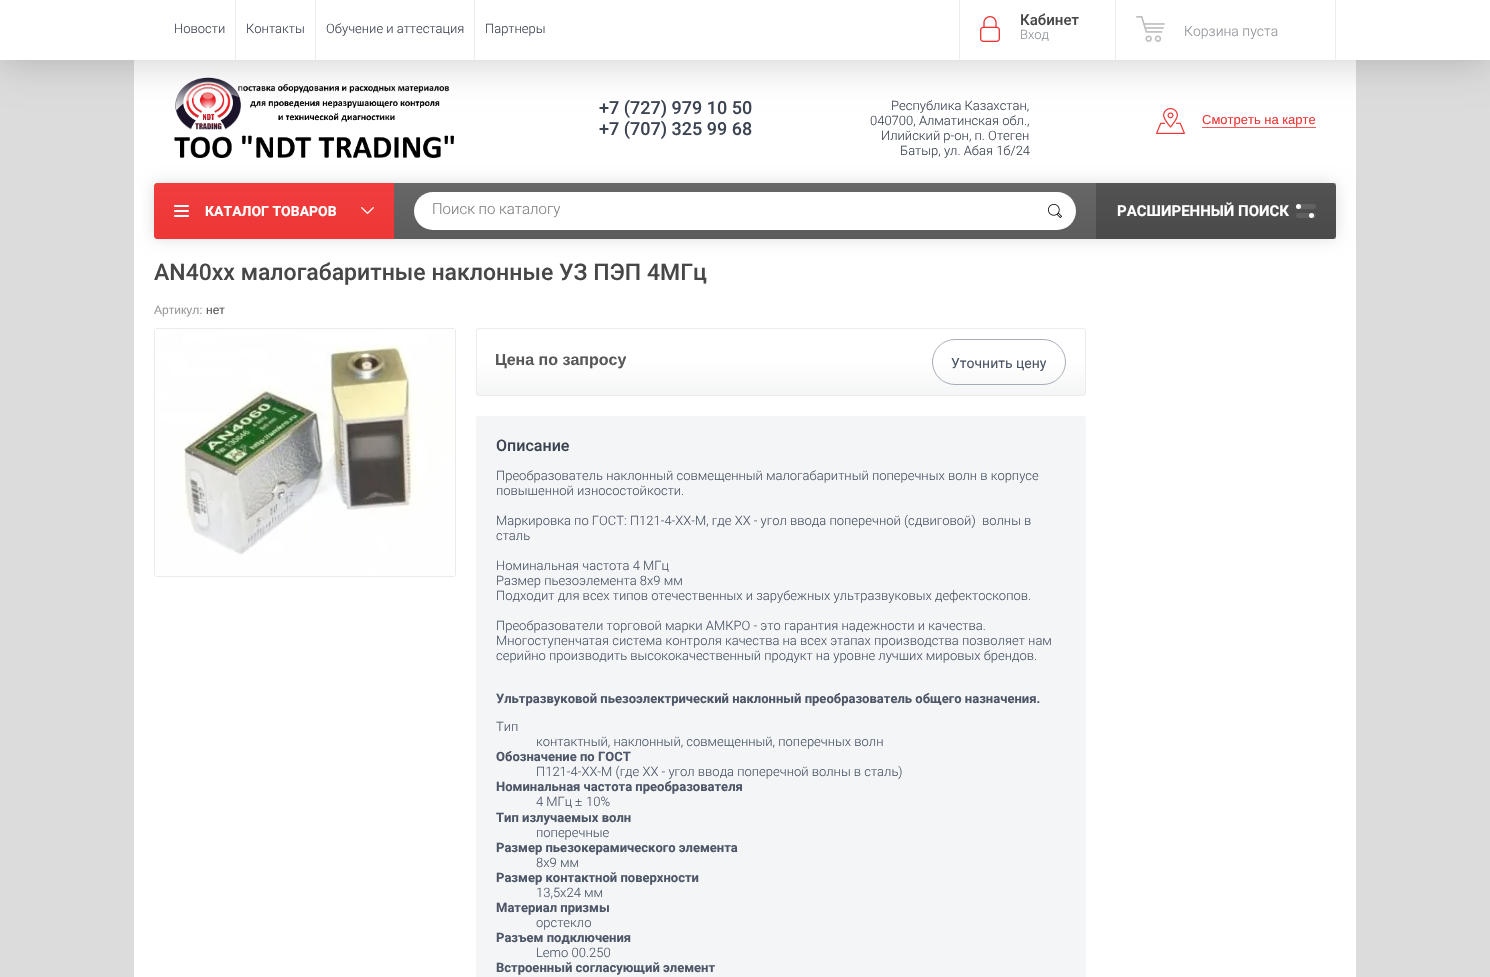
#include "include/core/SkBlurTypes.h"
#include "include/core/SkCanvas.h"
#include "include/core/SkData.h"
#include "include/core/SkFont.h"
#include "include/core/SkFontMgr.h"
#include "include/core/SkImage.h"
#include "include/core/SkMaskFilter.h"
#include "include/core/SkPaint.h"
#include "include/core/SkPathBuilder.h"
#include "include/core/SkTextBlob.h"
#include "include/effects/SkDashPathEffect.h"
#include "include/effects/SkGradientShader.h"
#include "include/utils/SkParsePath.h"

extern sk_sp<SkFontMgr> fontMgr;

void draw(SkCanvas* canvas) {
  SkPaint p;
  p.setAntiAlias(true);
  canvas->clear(SkColorSetRGB(220, 220, 220));
  p.setColor(SK_ColorWHITE);
  canvas->drawRect(SkRect::MakeLTRB(134, 60, 1356, 977), p);
  canvas->drawImageRect(SkImages::DeferredFromEncodedData(SkData::MakeFromFileName("images/3.png")), SkRect::MakeLTRB(174, 77, 454, 158), SkSamplingOptions());
  canvas->drawImageRect(SkImages::DeferredFromEncodedData(SkData::MakeFromFileName("images/4.png")), SkRect::MakeLTRB(1156, 108, 1185, 134), SkSamplingOptions());
  p.setColor(SkColorSetARGB(51, 0, 0, 0));
  p.setMaskFilter(SkMaskFilter::MakeBlur(kNormal_SkBlurStyle, 20));
  canvas->drawRect(SkRect::MakeLTRB(0, 1, 1490, 61), p);
  p.setMaskFilter(nullptr);
  p.setColor(SK_ColorWHITE);
  canvas->drawRect(SkRect::MakeLTRB(0, 0, 1490, 60), p);
  p.setColor(SkColorSetRGB(236, 236, 236));
  canvas->drawRect(SkRect::MakeLTRB(235, 0, 236, 60), p);
  canvas->drawRect(SkRect::MakeLTRB(315, 0, 316, 60), p);
  canvas->drawRect(SkRect::MakeLTRB(474, 0, 475, 60), p);
  canvas->drawRect(SkRect::MakeLTRB(959, 0, 960, 60), p);
  canvas->drawRect(SkRect::MakeLTRB(1115, 0, 1116, 60), p);
  canvas->drawImageRect(SkImages::DeferredFromEncodedData(SkData::MakeFromFileName("images/1.png")), SkRect::MakeLTRB(980, 16, 1000, 42), SkSamplingOptions());
  canvas->drawRect(SkRect::MakeLTRB(1335, 0, 1336, 60), p);
  canvas->drawImageRect(SkImages::DeferredFromEncodedData(SkData::MakeFromFileName("images/2.png")), SkRect::MakeLTRB(1136, 16, 1165, 42), SkSamplingOptions());
  p.setColor(SkColorSetRGB(240, 90, 90));
  canvas->drawRect(SkRect::MakeLTRB(1202, 127, 1316, 128), p);
  p.setColor(SkColorSetARGB(33, 0, 0, 0));
  p.setMaskFilter(SkMaskFilter::MakeBlur(kNormal_SkBlurStyle, 7.5f));
  canvas->drawRoundRect(SkRect::MakeLTRB(154, 183, 1336, 239), 4, 4, p);
  p.setMaskFilter(nullptr);
  {
    const SkColor colors[] = {SkColorSetRGB(92, 92, 92), SkColorSetRGB(103, 103, 103)};
    const float stops[] = {0, 1};
    const SkPoint ends[] = {{745, 239}, {745, 183}};
    p.setShader(SkGradientShader::MakeLinear(ends, colors, stops, 2, SkTileMode::kClamp));
    p.setAlpha(255);
  }
  canvas->drawPath(SkPathBuilder().moveTo(158, 183).lineTo(1333, 183).cubicTo(1334.5f, 183, 1336, 184.5f, 1336, 186).lineTo(1336, 236).cubicTo(1336, 237.5f, 1334.5f, 239, 1333, 239).lineTo(158, 239).cubicTo(156, 239, 154, 237, 154, 235).lineTo(154, 187).cubicTo(154, 185, 156, 183, 158, 183).close().detach(), p);
  {
    const SkColor colors[] = {SkColorSetRGB(238, 55, 55), SkColorSetRGB(240, 61, 61)};
    const float stops[] = {0, 1};
    const SkPoint ends[] = {{274, 239}, {274, 183}};
    p.setShader(SkGradientShader::MakeLinear(ends, colors, stops, 2, SkTileMode::kClamp));
    p.setAlpha(255);
  }
  canvas->drawPath(SkPathBuilder().moveTo(157, 183).lineTo(394, 183).lineTo(394, 239).lineTo(157, 239).cubicTo(155.5f, 239, 154, 237.5f, 154, 236).lineTo(154, 186).cubicTo(154, 184.5f, 155.5f, 183, 157, 183).close().detach(), p);
  canvas->drawImageRect(SkImages::DeferredFromEncodedData(SkData::MakeFromFileName("images/5.png")), SkRect::MakeLTRB(174, 205, 189, 217), SkSamplingOptions());
  canvas->drawImageRect(SkImages::DeferredFromEncodedData(SkData::MakeFromFileName("images/6.png")), SkRect::MakeLTRB(361, 207, 374, 214), SkSamplingOptions());
  p.setShader(nullptr);
  p.setColor(SK_ColorWHITE);
  canvas->drawRoundRect(SkRect::MakeLTRB(414, 192, 1076, 230), 19, 19, p);
  canvas->drawImageRect(SkImages::DeferredFromEncodedData(SkData::MakeFromFileName("images/7.png")), SkRect::MakeLTRB(1048, 204, 1062, 218), SkSamplingOptions());
  p.setColor(SkColorSetARGB(51, 0, 0, 0));
  canvas->drawRect(SkRect::MakeLTRB(1096, 183, 1336, 239), p);
  p.setColor(SkColorSetRGB(98, 98, 98));
  canvas->drawRoundRect(SkRect::MakeLTRB(1296, 204, 1316, 209), 2.5f, 2.5f, p);
  p.setColor(SK_ColorWHITE);
  canvas->drawCircle(1298.5f, 206.5f, 2.5f, p);
  p.setColor(SkColorSetRGB(96, 96, 96));
  canvas->drawRoundRect(SkRect::MakeLTRB(1296, 213, 1316, 218), 2.5f, 2.5f, p);
  p.setColor(SK_ColorWHITE);
  canvas->drawCircle(1311.5f, 215.5f, 2.5f, p);
  p.setStyle(SkPaint::kStroke_Style);
  p.setStrokeWidth(1);
  p.setColor(SkColorSetRGB(233, 235, 238));
  canvas->drawRoundRect(SkRect::MakeLTRB(154.5f, 328.5f, 455.5f, 576.5f), 2.5f, 2.5f, p);
  canvas->drawImageRect(SkImages::DeferredFromEncodedData(SkData::MakeFromFileName("images/8.png")), SkRect::MakeLTRB(155, 329, 455, 576), SkSamplingOptions());
  canvas->save();
  canvas->clipPath(SkPathBuilder().moveTo(479, 328).lineTo(1083, 328).cubicTo(1084.5f, 328, 1086, 329.5f, 1086, 331).lineTo(1086, 393).cubicTo(1086, 394.5f, 1084.5f, 396, 1083, 396).lineTo(479, 396).cubicTo(477.5f, 396, 476, 394.5f, 476, 393).lineTo(476, 331).cubicTo(476, 329.5f, 477.5f, 328, 479, 328).close().detach(), true);
  p.setStyle(SkPaint::kFill_Style);
  {
    const SkColor colors[] = {SkColorSetRGB(244, 245, 246), SK_ColorWHITE};
    const float stops[] = {0, 0.5f};
    const SkPoint ends[] = {{781, 395}, {781, 329}};
    p.setShader(SkGradientShader::MakeLinear(ends, colors, stops, 2, SkTileMode::kClamp));
    p.setAlpha(255);
  }
  canvas->drawRect(SkRect::MakeLTRB(476, 329, 1086, 395), p);
  canvas->restore();
  p.setStyle(SkPaint::kStroke_Style);
  p.setShader(nullptr);
  p.setColor(SkColorSetRGB(236, 236, 236));
  canvas->drawRoundRect(SkRect::MakeLTRB(476.5f, 328.5f, 1085.5f, 395.5f), 2.5f, 2.5f, p);
  p.setColor(SkColorSetRGB(167, 173, 182));
  canvas->drawRoundRect(SkRect::MakeLTRB(932.5f, 339.5f, 1065.5f, 384.5f), 22.5f, 22.5f, p);
  p.setStyle(SkPaint::kFill_Style);
  p.setColor(SkColorSetRGB(244, 245, 246));
  canvas->drawRoundRect(SkRect::MakeLTRB(476, 416, 1086, 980), 3, 3, p);
  SkFont font1(fontMgr->matchFamilyStyle("Roboto", SkFontStyle(300, SkFontStyle::kNormal_Width, SkFontStyle::kUpright_Slant)), 13);
  font1.setSubpixel(true);
  p.setColor(SkColorSetRGB(60, 68, 82));
  canvas->drawString("Новости", 174, 33, font1, p);
  canvas->drawString("Контакты", 246, 33, font1, p);
  canvas->drawString("Обучение и аттестация", 326, 33, font1, p);
  canvas->drawString("Партнеры", 485, 33, font1, p);
  SkFont font2(fontMgr->matchFamilyStyle("Roboto", SkFontStyle(500, SkFontStyle::kNormal_Width, SkFontStyle::kUpright_Slant)), 15);
  font2.setSubpixel(true);
  p.setColor(SkColorSetRGB(71, 71, 71));
  canvas->drawString("Кабинет", 1020, 25, font2, p);
  p.setColor(SkColorSetRGB(142, 146, 152));
  canvas->drawString("Вход", 1020, 39, font1, p);
  SkFont font3(fontMgr->matchFamilyStyle("Roboto", SkFontStyle(300, SkFontStyle::kNormal_Width, SkFontStyle::kUpright_Slant)), 14);
  font3.setSubpixel(true);
  canvas->drawString("Корзина пуста", 1184, 36, font3, p);
  SkFont font4(fontMgr->matchFamilyStyle("Roboto", SkFontStyle(500, SkFontStyle::kNormal_Width, SkFontStyle::kUpright_Slant)), 18);
  font4.setSubpixel(true);
  p.setColor(SkColorSetRGB(60, 68, 82));
  canvas->drawString("+7 (727) 979 10 50", 599, 114, font4, p);
  canvas->drawString("+7 (707) 325 99 68", 599, 135, font4, p);
  canvas->drawString("Республика Казахстан,", 891, 110, font1, p);
  canvas->drawString("040700, Алматинская обл.,", 870, 125, font1, p);
  canvas->drawString("Илийский р-он, п. Отеген", 881, 140, font1, p);
  canvas->drawString("Батыр, ул. Абая 1б/24", 900, 155, font1, p);
  SkFont font5(fontMgr->matchFamilyStyle("Liberation Sans", SkFontStyle::Normal()), 13);
  font5.setSubpixel(true);
  p.setColor(SkColorSetRGB(237, 53, 53));
  canvas->drawString("Смотреть на карте", 1202, 124, font5, p);
  SkFont font6(fontMgr->matchFamilyStyle("Roboto", SkFontStyle::Bold()), 14);
  font6.setSubpixel(true);
  p.setColor(SK_ColorWHITE);
  canvas->drawString("КАТАЛОГ ТОВАРОВ", 205, 216, font6, p);
  SkFont font7(fontMgr->matchFamilyStyle("Roboto", SkFontStyle(300, SkFontStyle::kNormal_Width, SkFontStyle::kUpright_Slant)), 15);
  font7.setSubpixel(true);
  p.setColor(SkColorSetRGB(129, 129, 129));
  canvas->drawString("Поиск по каталогу", 432, 214, font7, p);
  SkFont font8(fontMgr->matchFamilyStyle("Roboto", SkFontStyle::Bold()), 15);
  font8.setSubpixel(true);
  p.setColor(SK_ColorWHITE);
  canvas->drawString("РАСШИРЕННЫЙ ПОИСК", 1117, 216, font8, p);
  SkFont font9(fontMgr->matchFamilyStyle("Roboto", SkFontStyle(500, SkFontStyle::kNormal_Width, SkFontStyle::kUpright_Slant)), 23);
  font9.setSubpixel(true);
  p.setColor(SkColorSetRGB(71, 71, 71));
  canvas->drawString("AN40xx малогабаритные наклонные УЗ ПЭП 4МГц", 154, 280, font9, p);
  SkFont font10(fontMgr->matchFamilyStyle("Liberation Sans", SkFontStyle::Normal()), 12);
  font10.setSubpixel(true);
  p.setColor(SkColorSetRGB(153, 153, 153));
  canvas->drawString("Артикул:", 154, 314, font10, p);
  p.setColor(SkColorSetRGB(88, 88, 88));
  canvas->drawString("нет", 206, 314, font10, p);
  SkFont font11(fontMgr->matchFamilyStyle("Liberation Sans", SkFontStyle::Bold()), 16);
  font11.setSubpixel(true);
  canvas->drawString("Цена по запросу", 495, 365, font11, p);
  SkFont font12(fontMgr->matchFamilyStyle("Roboto", SkFontStyle::Normal()), 14);
  font12.setSubpixel(true);
  p.setColor(SkColorSetRGB(76, 86, 103));
  canvas->drawString("Уточнить цену", 951, 368, font12, p);
  SkFont font13(fontMgr->matchFamilyStyle("Roboto", SkFontStyle(500, SkFontStyle::kNormal_Width, SkFontStyle::kUpright_Slant)), 16);
  font13.setSubpixel(true);
  p.setColor(SkColorSetRGB(60, 68, 82));
  canvas->drawString("Описание", 496, 451, font13, p);
  p.setColor(SkColorSetRGB(76, 86, 103));
  canvas->drawString("Преобразователь наклонный совмещенный малогабаритный поперечных волн в корпусе", 496, 480, font1, p);
  canvas->drawString("повышенной износостойкости.", 496, 495, font1, p);
  canvas->drawString("Маркировка по ГОСТ: П121-4-ХХ-М, где XX - угол ввода поперечной (сдвиговой)  волны в", 496, 525, font1, p);
  canvas->drawString("сталь", 496, 540, font1, p);
  canvas->drawString("Номинальная частота 4 МГц", 496, 570, font1, p);
  canvas->drawString("Размер пьезоэлемента 8х9 мм", 496, 585, font1, p);
  canvas->drawString("Подходит для всех типов отечественных и зарубежных ультразвуковых дефектоскопов.", 496, 600, font1, p);
  canvas->drawString("Преобразователи торговой марки АМКРО - это гарантия надежности и качества.", 496, 630, font1, p);
  canvas->drawString("Многоступенчатая система контроля качества на всех этапах производства позволяет нам", 496, 645, font1, p);
  canvas->drawString("серийно производить высококачественный продукт на уровне лучших мировых брендов.", 496, 660, font1, p);
  SkFont font14(fontMgr->matchFamilyStyle("Roboto", SkFontStyle::Bold()), 13);
  font14.setSubpixel(true);
  canvas->drawString("Ультразвуковой пьезоэлектрический наклонный преобразователь общего назначения.", 496, 703, font14, p);
  canvas->drawString("Тип", 496, 731, font1, p);
  canvas->drawString("контактный, наклонный, совмещенный, поперечных волн", 536, 746, font1, p);
  canvas->drawString("Обозначение по ГОСТ", 496, 761, font14, p);
  canvas->drawString("П121-4-ХХ-М (где XX - угол ввода поперечной волны в сталь)", 536, 776, font1, p);
  canvas->drawString("Номинальная частота преобразователя", 496, 791, font14, p);
  canvas->drawString("4 МГц", 536, 806, font1, p);
  SkFont font15(fontMgr->matchFamilyStyle("Liberation Serif", SkFontStyle::Normal()), 13);
  font15.setSubpixel(true);
  canvas->drawString("±", 575, 806, font15, p);
  canvas->drawString("10%", 586, 806, font1, p);
  canvas->drawString("Тип излучаемых волн", 496, 822, font14, p);
  canvas->drawString("поперечные", 536, 837, font1, p);
  canvas->drawString("Размер пьезокерамического элемента", 496, 852, font14, p);
  canvas->drawString("8х9 мм", 536, 867, font1, p);
  canvas->drawString("Размер контактной поверхности", 496, 882, font14, p);
  canvas->drawString("13,5х24 мм", 536, 897, font1, p);
  canvas->drawString("Материал призмы", 496, 912, font14, p);
  canvas->drawString("орстекло", 536, 927, font1, p);
  canvas->drawString("Разъем подключения", 496, 942, font14, p);
  canvas->drawString("Lemo 00.250", 536, 957, font1, p);
  canvas->drawString("Встроенный согласующий элемент", 496, 972, font14, p);
}
